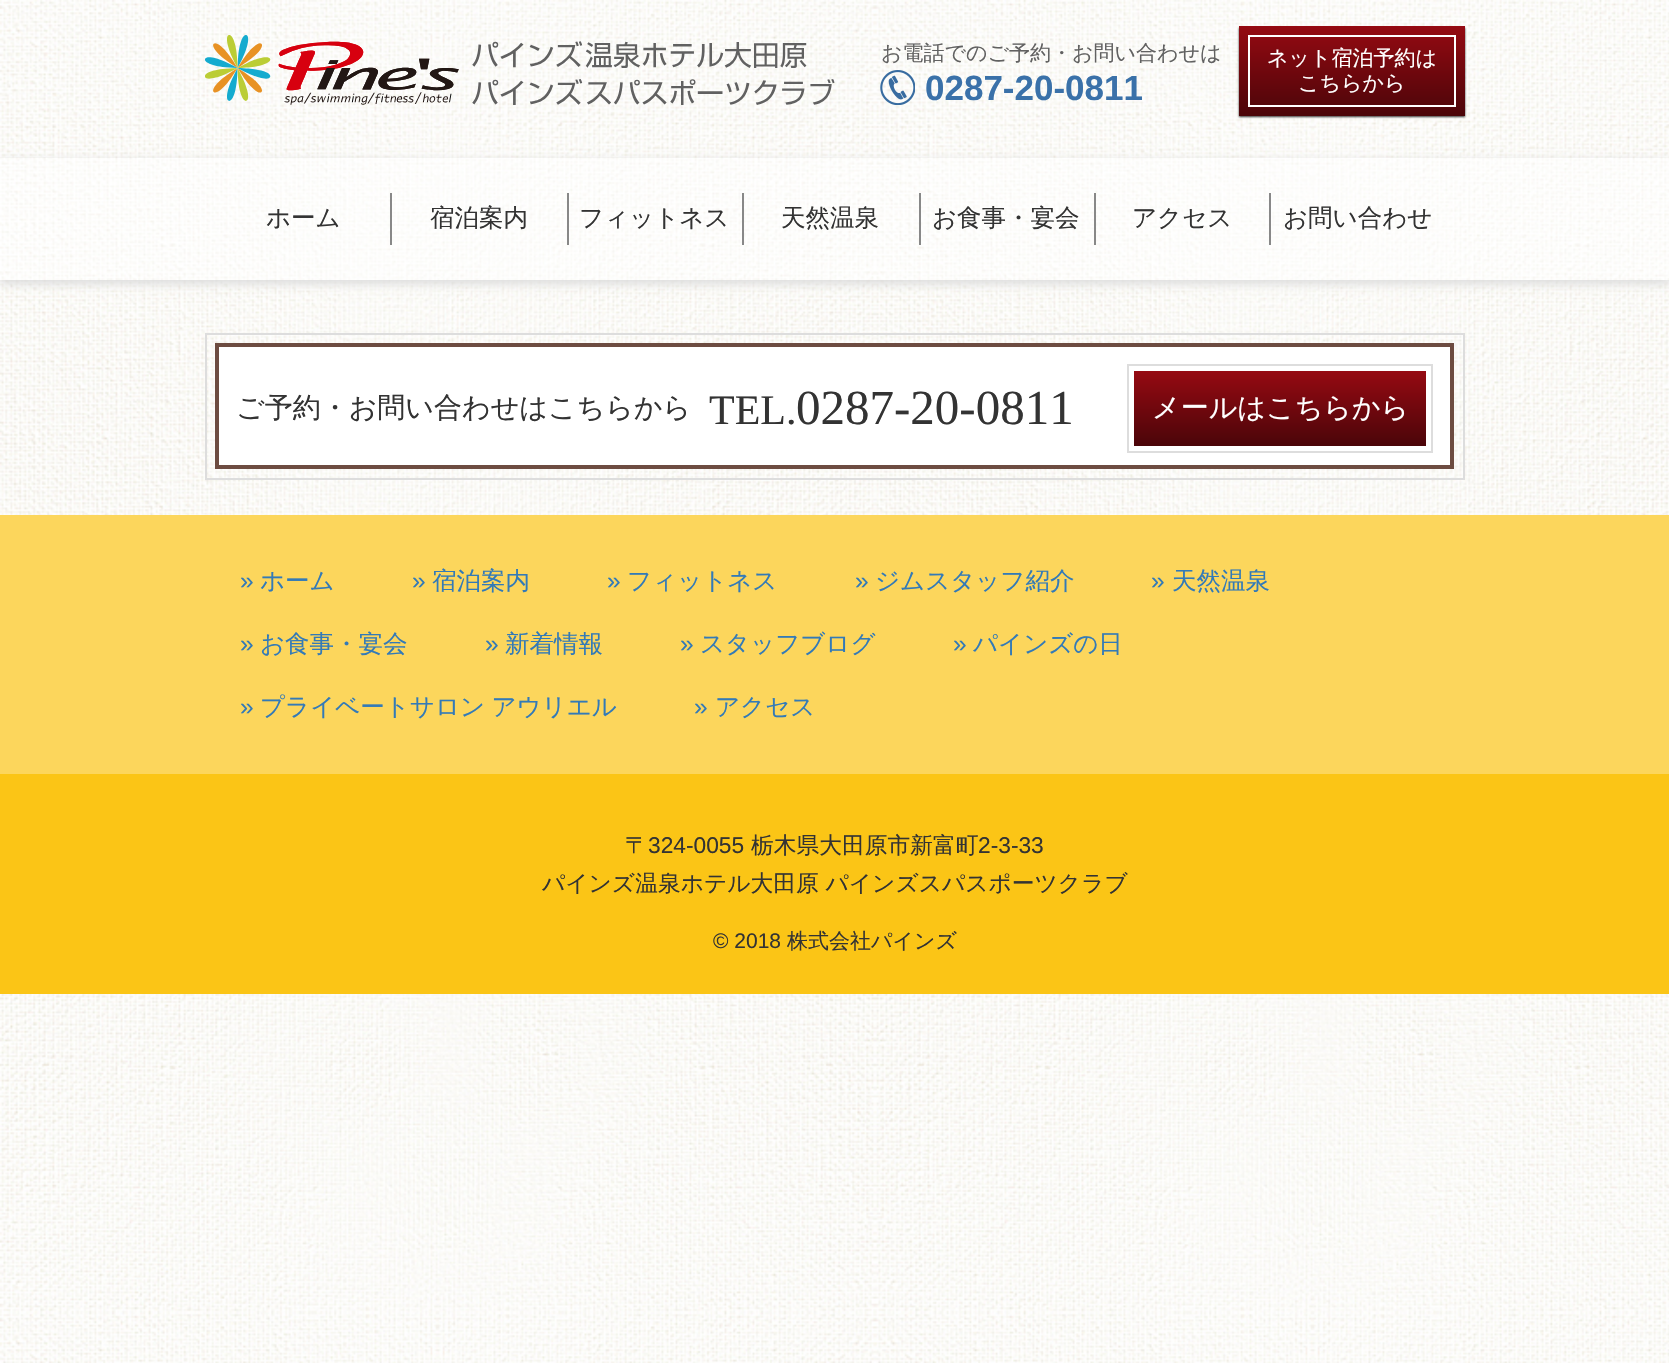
#include "include/core/SkBlurTypes.h"
#include "include/core/SkCanvas.h"
#include "include/core/SkData.h"
#include "include/core/SkFont.h"
#include "include/core/SkFontMgr.h"
#include "include/core/SkImage.h"
#include "include/core/SkMaskFilter.h"
#include "include/core/SkPaint.h"
#include "include/core/SkPathBuilder.h"
#include "include/core/SkTextBlob.h"
#include "include/effects/SkDashPathEffect.h"
#include "include/effects/SkGradientShader.h"
#include "include/utils/SkParsePath.h"

extern sk_sp<SkFontMgr> fontMgr;

void draw(SkCanvas* canvas) {
  SkPaint p;
  p.setAntiAlias(true);
  auto spacedText = [&](const char* s, float x, float y, const SkFont& font, const SkPaint& ink, float letter, float word) {
    std::vector<SkGlyphID> glyphs(font.countText(s, strlen(s), SkTextEncoding::kUTF8));
    std::vector<float> xs(glyphs.size());
    font.textToGlyphs(s, strlen(s), SkTextEncoding::kUTF8, glyphs);
    font.getXPos(glyphs, xs, x);
    float extra = 0;
    for (size_t i = 0; i < glyphs.size(); i++) {
      xs[i] += extra;
      extra += letter + word * (glyphs[i] == font.unicharToGlyph(' '));
    }
    canvas->drawTextBlob(SkTextBlob::MakeFromPosHGlyphs(glyphs, xs, y, font), 0, 0, ink);
  };
  canvas->clear(SK_ColorWHITE);
  canvas->drawImageRect(SkImages::DeferredFromEncodedData(SkData::MakeFromFileName("images/1.png")), SkRect::MakeLTRB(0, 0, 1669, 1363), SkSamplingOptions());
  canvas->drawImageRect(SkImages::DeferredFromEncodedData(SkData::MakeFromFileName("images/2.png")), SkRect::MakeLTRB(205, 35, 835, 105), SkSamplingOptions());
  canvas->drawImageRect(SkImages::DeferredFromEncodedData(SkData::MakeFromFileName("images/3.png")), SkRect::MakeLTRB(880, 70, 915, 105), SkSamplingOptions());
  p.setColor(SkColorSetRGB(51, 51, 51));
  p.setMaskFilter(SkMaskFilter::MakeBlur(kNormal_SkBlurStyle, 1));
  canvas->drawRect(SkRect::MakeLTRB(1239, 28, 1465, 117), p);
  p.setMaskFilter(nullptr);
  {
    const SkColor colors[] = {SkColorSetRGB(149, 10, 18), SkColorSetRGB(75, 5, 9)};
    const float stops[] = {0, 1};
    const SkPoint ends[] = {{1352, 26}, {1352, 116}};
    p.setShader(SkGradientShader::MakeLinear(ends, colors, stops, 2, SkTileMode::kClamp));
    p.setAlpha(255);
  }
  canvas->drawRect(SkRect::MakeLTRB(1239, 26, 1465, 116), p);
  p.setStyle(SkPaint::kStroke_Style);
  p.setStrokeWidth(2);
  p.setShader(nullptr);
  p.setColor(SK_ColorWHITE);
  canvas->drawRect(SkRect::MakeLTRB(1249, 36, 1455, 106), p);
  canvas->save();
  canvas->clipPath(SkPathBuilder(SkPathFillType::kEvenOdd).moveTo(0, 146).lineTo(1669, 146).lineTo(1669, 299).lineTo(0, 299).close().moveTo(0, 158).lineTo(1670, 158).lineTo(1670, 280).lineTo(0, 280).close().detach(), true);
  p.setStyle(SkPaint::kFill_Style);
  p.setColor(SkColorSetRGB(221, 221, 221));
  p.setMaskFilter(SkMaskFilter::MakeBlur(kNormal_SkBlurStyle, 4.5f));
  canvas->drawRect(SkRect::MakeLTRB(0, 161, 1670, 284), p);
  p.setMaskFilter(nullptr);
  canvas->restore();
  p.setColor(SkColorSetARGB(128, 255, 255, 255));
  canvas->drawRect(SkRect::MakeLTRB(0, 158, 1669, 280), p);
  p.setColor(SkColorSetRGB(136, 136, 136));
  canvas->drawRect(SkRect::MakeLTRB(390, 193, 392, 245), p);
  canvas->drawRect(SkRect::MakeLTRB(567, 193, 569, 245), p);
  canvas->drawRect(SkRect::MakeLTRB(742, 193, 744, 245), p);
  canvas->drawRect(SkRect::MakeLTRB(919, 193, 921, 245), p);
  canvas->drawRect(SkRect::MakeLTRB(1094, 193, 1096, 245), p);
  canvas->drawRect(SkRect::MakeLTRB(1269, 193, 1271, 245), p);
  p.setStyle(SkPaint::kStroke_Style);
  p.setColor(SkColorSetRGB(221, 221, 221));
  canvas->drawRect(SkRect::MakeLTRB(206, 334, 1464, 479), p);
  p.setStyle(SkPaint::kFill_Style);
  p.setColor(SK_ColorWHITE);
  canvas->drawRect(SkRect::MakeLTRB(217, 345, 1452, 467), p);
  p.setStyle(SkPaint::kStroke_Style);
  p.setStrokeWidth(4);
  p.setColor(SkColorSetRGB(109, 76, 65));
  canvas->drawRect(SkRect::MakeLTRB(217, 345, 1452, 467), p);
  p.setStrokeWidth(2);
  p.setColor(SkColorSetRGB(221, 221, 221));
  canvas->drawRect(SkRect::MakeLTRB(1128, 365, 1432, 452), p);
  p.setStyle(SkPaint::kFill_Style);
  {
    const SkColor colors[] = {SkColorSetRGB(149, 10, 18), SkColorSetRGB(75, 5, 9)};
    const float stops[] = {0, 1};
    const SkPoint ends[] = {{1280, 371}, {1280, 446}};
    p.setShader(SkGradientShader::MakeLinear(ends, colors, stops, 2, SkTileMode::kClamp));
    p.setAlpha(255);
  }
  canvas->drawRect(SkRect::MakeLTRB(1134, 371, 1426, 446), p);
  p.setShader(nullptr);
  p.setColor(SkColorSetRGB(251, 197, 22));
  canvas->drawRect(SkRect::MakeLTRB(0, 774, 1669, 994), p);
  p.setColor(SkColorSetRGB(252, 214, 92));
  canvas->drawRect(SkRect::MakeLTRB(0, 515, 1669, 774), p);
  SkFont font1(fontMgr->matchFamilyStyle("WenQuanYi Zen Hei", SkFontStyle(500, SkFontStyle::kNormal_Width, SkFontStyle::kUpright_Slant)), 21);
  font1.setSubpixel(true);
  p.setColor(SkColorSetRGB(97, 97, 97));
  canvas->drawString("お電話でのご予約・お問い合わせは", 881, 60, font1, p);
  SkFont font2(fontMgr->matchFamilyStyle("Liberation Sans", SkFontStyle::Bold()), 35);
  font2.setSubpixel(true);
  p.setColor(SkColorSetRGB(58, 113, 169));
  canvas->drawString("0287-20-0811", 925, 100, font2, p);
  p.setColor(SK_ColorWHITE);
  canvas->drawString("ネット宿泊予約は", 1267, 65, font1, p);
  canvas->drawString("こちらから", 1298, 90, font1, p);
  SkFont font3(fontMgr->matchFamilyStyle("WenQuanYi Zen Hei", SkFontStyle(500, SkFontStyle::kNormal_Width, SkFontStyle::kUpright_Slant)), 24.5f);
  font3.setSubpixel(true);
  p.setColor(SkColorSetRGB(51, 51, 51));
  canvas->drawString("ホーム", 266, 226, font3, p);
  canvas->drawString("宿泊案内", 430, 226, font3, p);
  canvas->drawString("フィットネス", 579, 226, font3, p);
  canvas->drawString("天然温泉", 781, 226, font3, p);
  canvas->drawString("お食事・宴会", 932, 226, font3, p);
  canvas->drawString("アクセス", 1132, 226, font3, p);
  canvas->drawString("お問い合わせ", 1283, 226, font3, p);
  SkFont font4(fontMgr->matchFamilyStyle("WenQuanYi Zen Hei", SkFontStyle(500, SkFontStyle::kNormal_Width, SkFontStyle::kUpright_Slant)), 28);
  font4.setSubpixel(true);
  canvas->drawString("ご予約・お問い合わせはこちらから", 236, 417, font4, p);
  SkFont font5(fontMgr->matchFamilyStyle("Liberation Serif", SkFontStyle::Normal()), 42);
  font5.setSubpixel(true);
  canvas->drawString("TEL.", 709, 424, font5, p);
  SkFont font6(fontMgr->matchFamilyStyle("Liberation Serif", SkFontStyle::Normal()), 49);
  font6.setSubpixel(true);
  canvas->drawString("0287-20-0811", 796, 424, font6, p);
  p.setColor(SK_ColorWHITE);
  canvas->drawString("メールはこちらから", 1152, 417, font4, p);
  SkFont font7(fontMgr->matchFamilyStyle("Liberation Sans", SkFontStyle::Normal()), 24.5f);
  font7.setSubpixel(true);
  p.setColor(SkColorSetRGB(51, 122, 183));
  canvas->drawString("»", 240, 589, font7, p);
  canvas->drawString("ホーム", 260, 589, font3, p);
  canvas->drawString("»", 412, 589, font7, p);
  canvas->drawString("宿泊案内", 432, 589, font3, p);
  canvas->drawString("»", 607, 589, font7, p);
  canvas->drawString("フィットネス", 627, 589, font3, p);
  canvas->drawString("»", 855, 589, font7, p);
  canvas->drawString("ジムスタッフ紹介", 875, 589, font3, p);
  canvas->drawString("»", 1151, 589, font7, p);
  canvas->drawString("天然温泉", 1172, 589, font3, p);
  canvas->drawString("»", 240, 652, font7, p);
  canvas->drawString("お食事・宴会", 260, 652, font3, p);
  canvas->drawString("»", 485, 652, font7, p);
  canvas->drawString("新着情報", 505, 652, font3, p);
  canvas->drawString("»", 680, 652, font7, p);
  canvas->drawString("スタッフブログ", 700, 652, font3, p);
  canvas->drawString("»", 953, 652, font7, p);
  canvas->drawString("パインズの日", 973, 652, font3, p);
  canvas->drawString("»", 240, 715, font7, p);
  spacedText("プライベートサロン アウリエル", 260, 715, font3, p, 0, -1);
  canvas->drawString("»", 694, 715, font7, p);
  canvas->drawString("アクセス", 715, 715, font3, p);
  SkFont font8(fontMgr->matchFamilyStyle("WenQuanYi Zen Hei", SkFontStyle(500, SkFontStyle::kNormal_Width, SkFontStyle::kUpright_Slant)), 22.75f);
  font8.setSubpixel(true);
  p.setColor(SkColorSetRGB(51, 51, 51));
  canvas->drawString("〒", 625, 853, font8, p);
  SkFont font9(fontMgr->matchFamilyStyle("Liberation Sans", SkFontStyle::Normal()), 22.75f);
  font9.setSubpixel(true);
  canvas->drawString("324-0055", 648, 853, font9, p);
  canvas->drawString("栃木県大田原市新富町", 751, 853, font8, p);
  canvas->drawString("2-3-33", 978, 853, font9, p);
  canvas->drawString("パインズ温泉ホテル大田原 パインズスパスポーツクラブ", 542, 891, font8, p);
  SkFont font10(fontMgr->matchFamilyStyle("Liberation Sans", SkFontStyle::Normal()), 21);
  font10.setSubpixel(true);
  canvas->drawString("© 2018", 713, 948, font10, p);
  canvas->drawString("株式会社パインズ", 787, 948, font1, p);
}
